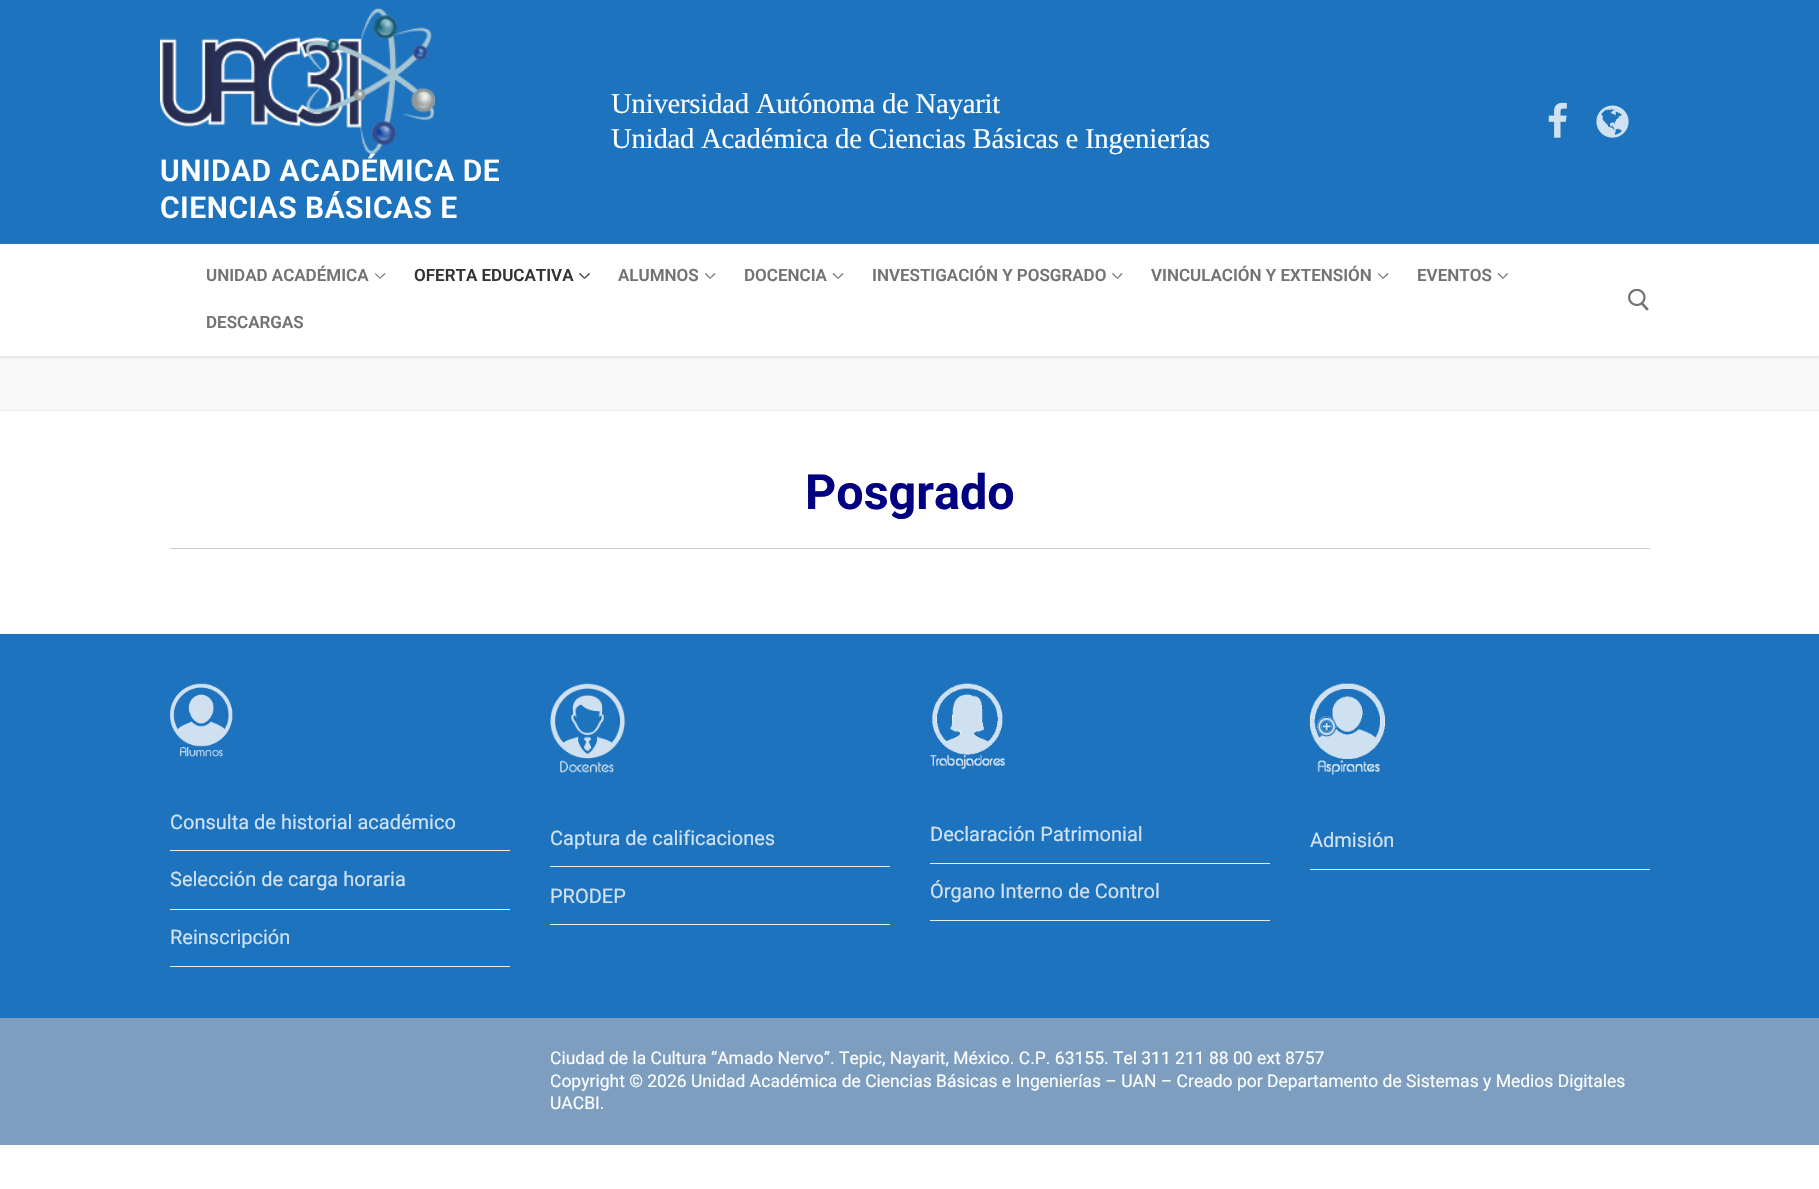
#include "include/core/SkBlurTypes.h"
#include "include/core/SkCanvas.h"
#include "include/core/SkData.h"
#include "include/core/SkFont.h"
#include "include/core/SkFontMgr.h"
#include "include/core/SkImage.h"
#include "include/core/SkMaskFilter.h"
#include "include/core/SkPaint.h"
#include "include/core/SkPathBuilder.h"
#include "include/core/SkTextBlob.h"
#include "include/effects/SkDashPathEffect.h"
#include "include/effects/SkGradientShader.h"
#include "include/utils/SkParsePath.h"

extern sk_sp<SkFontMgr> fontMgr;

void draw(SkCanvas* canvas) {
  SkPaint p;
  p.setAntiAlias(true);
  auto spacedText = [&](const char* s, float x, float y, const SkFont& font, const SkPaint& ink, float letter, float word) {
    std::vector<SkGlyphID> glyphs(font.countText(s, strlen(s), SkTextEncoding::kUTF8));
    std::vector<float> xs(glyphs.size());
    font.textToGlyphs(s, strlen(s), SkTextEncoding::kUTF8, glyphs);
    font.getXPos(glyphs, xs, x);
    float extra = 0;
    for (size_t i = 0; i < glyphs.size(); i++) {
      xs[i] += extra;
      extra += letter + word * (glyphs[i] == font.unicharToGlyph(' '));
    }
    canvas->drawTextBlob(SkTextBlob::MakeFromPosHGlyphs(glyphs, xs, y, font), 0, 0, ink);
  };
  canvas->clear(SK_ColorWHITE);
  p.setColor(SkColorSetRGB(30, 115, 190));
  canvas->drawRect(SkRect::MakeLTRB(0, 0, 1819, 244), p);
  canvas->drawImageRect(SkImages::DeferredFromEncodedData(SkData::MakeFromFileName("images/1.png")), SkRect::MakeLTRB(1548, 102, 1567, 138), SkSamplingOptions());
  canvas->drawImageRect(SkImages::DeferredFromEncodedData(SkData::MakeFromFileName("images/2.png")), SkRect::MakeLTRB(1596, 105, 1629, 138), SkSamplingOptions());
  canvas->drawImageRect(SkImages::DeferredFromEncodedData(SkData::MakeFromFileName("images/3.png")), SkRect::MakeLTRB(160, 8, 435, 154), SkSamplingOptions());
  p.setColor(SkColorSetRGB(249, 249, 249));
  canvas->drawRect(SkRect::MakeLTRB(0, 356, 1819, 410), p);
  canvas->save();
  canvas->clipPath(SkPathBuilder(SkPathFillType::kEvenOdd).moveTo(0, 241).lineTo(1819, 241).lineTo(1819, 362).lineTo(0, 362).close().moveTo(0, 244).lineTo(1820, 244).lineTo(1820, 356).lineTo(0, 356).close().detach(), true);
  p.setColor(SkColorSetRGB(225, 229, 234));
  p.setMaskFilter(SkMaskFilter::MakeBlur(kNormal_SkBlurStyle, 1));
  canvas->drawRect(SkRect::MakeLTRB(0, 245, 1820, 358), p);
  p.setMaskFilter(nullptr);
  canvas->restore();
  p.setColor(SkColorSetRGB(115, 115, 115));
  canvas->drawPath(SkPathBuilder().moveTo(380, 279).lineTo(375, 274).lineTo(375.5f, 273).lineTo(380, 277.5f).close().moveTo(385.5f, 274).lineTo(380, 279).lineTo(380, 277.5f).lineTo(384.5f, 273).close().detach(), p);
  p.setColor(SkColorSetRGB(51, 51, 51));
  canvas->drawPath(SkPathBuilder().moveTo(584.5f, 279).lineTo(579, 274).lineTo(580, 273).lineTo(584.5f, 277.5f).close().detach(), p);
  canvas->drawPath(SkPathBuilder().moveTo(590, 274).lineTo(584.5f, 279).lineTo(584.5f, 277.5f).lineTo(589, 273).close().detach(), p);
  p.setColor(SkColorSetRGB(115, 115, 115));
  canvas->drawPath(SkPathBuilder().moveTo(710, 279).lineTo(705, 274).lineTo(706, 273).lineTo(710, 277.5f).close().moveTo(715.5f, 274).lineTo(710, 279).lineTo(710, 277.5f).lineTo(714.5f, 273).close().detach(), p);
  canvas->drawPath(SkPathBuilder().moveTo(838, 279).lineTo(832.5f, 274).lineTo(833.5f, 273).lineTo(838, 277.5f).close().moveTo(843.5f, 274).lineTo(838, 279).lineTo(838, 277.5f).lineTo(842.5f, 273).close().detach(), p);
  canvas->drawPath(SkPathBuilder().moveTo(1117.5f, 279).lineTo(1112, 274).lineTo(1113, 273).lineTo(1117.5f, 277.5f).close().detach(), p);
  canvas->drawPath(SkPathBuilder().moveTo(1122.5f, 274).lineTo(1117.5f, 279).lineTo(1117.5f, 277.5f).lineTo(1121.5f, 273).close().detach(), p);
  canvas->drawPath(SkPathBuilder().moveTo(1383, 279).lineTo(1378, 274).lineTo(1378.5f, 273).lineTo(1383, 277.5f).close().moveTo(1388.5f, 274).lineTo(1383, 279).lineTo(1383, 277.5f).lineTo(1387.5f, 273).close().detach(), p);
  canvas->drawPath(SkPathBuilder().moveTo(1503, 279).lineTo(1497.5f, 274).lineTo(1498.5f, 273).lineTo(1503, 277.5f).close().moveTo(1508, 274).lineTo(1503, 279).lineTo(1503, 277.5f).lineTo(1507, 273).close().detach(), p);
  canvas->drawImageRect(SkImages::DeferredFromEncodedData(SkData::MakeFromFileName("images/4.png")), SkRect::MakeLTRB(1628, 289, 1649, 311), SkSamplingOptions());
  p.setColor(SkColorSetRGB(234, 236, 238));
  canvas->drawRect(SkRect::MakeLTRB(0, 410, 1819, 411), p);
  p.setColor(SkColorSetRGB(204, 204, 204));
  canvas->drawRect(SkRect::MakeLTRB(170, 548, 1650, 549), p);
  p.setColor(SkColorSetRGB(30, 115, 190));
  canvas->drawRect(SkRect::MakeLTRB(0, 634, 1819, 1018), p);
  canvas->drawImageRect(SkImages::DeferredFromEncodedData(SkData::MakeFromFileName("images/5.png")), SkRect::MakeLTRB(170, 683, 233, 757), SkSamplingOptions());
  p.setColor(SkColorSetRGB(234, 236, 238));
  canvas->drawRect(SkRect::MakeLTRB(170, 850, 510, 851), p);
  canvas->drawRect(SkRect::MakeLTRB(170, 909, 510, 910), p);
  canvas->drawRect(SkRect::MakeLTRB(170, 966, 510, 967), p);
  canvas->drawImageRect(SkImages::DeferredFromEncodedData(SkData::MakeFromFileName("images/6.png")), SkRect::MakeLTRB(550, 683, 625, 773), SkSamplingOptions());
  canvas->drawRect(SkRect::MakeLTRB(550, 866, 890, 867), p);
  canvas->drawRect(SkRect::MakeLTRB(550, 924, 890, 925), p);
  canvas->drawImageRect(SkImages::DeferredFromEncodedData(SkData::MakeFromFileName("images/7.png")), SkRect::MakeLTRB(930, 683, 1005, 769), SkSamplingOptions());
  canvas->drawRect(SkRect::MakeLTRB(930, 863, 1270, 864), p);
  canvas->drawRect(SkRect::MakeLTRB(930, 920, 1270, 921), p);
  canvas->drawImageRect(SkImages::DeferredFromEncodedData(SkData::MakeFromFileName("images/8.png")), SkRect::MakeLTRB(1310, 683, 1385, 775), SkSamplingOptions());
  canvas->drawRect(SkRect::MakeLTRB(1310, 869, 1650, 870), p);
  p.setColor(SkColorSetRGB(126, 158, 191));
  canvas->drawRect(SkRect::MakeLTRB(0, 1018, 1819, 1145), p);
  SkFont font1(fontMgr->matchFamilyStyle("Liberation Serif", SkFontStyle::Normal()), 28.75f);
  font1.setSubpixel(true);
  p.setColor(SkColorSetRGB(253, 254, 254));
  spacedText("Universidad Autónoma de Nayarit", 611, 113, font1, p, -0.25f, 0);
  spacedText("Unidad Académica de Ciencias Básicas e Ingenierías", 611, 148, font1, p, -0.25f, 0);
  SkFont font2(fontMgr->matchFamilyStyle("Roboto", SkFontStyle(600, SkFontStyle::kNormal_Width, SkFontStyle::kUpright_Slant)), 30);
  font2.setSubpixel(true);
  spacedText("UNIDAD ACADÉMICA DE", 160, 181, font2, p, 0.5f, 0);
  spacedText("CIENCIAS BÁSICAS E", 160, 218, font2, p, 0.5f, 0);
  SkFont font3(fontMgr->matchFamilyStyle("Roboto", SkFontStyle(600, SkFontStyle::kNormal_Width, SkFontStyle::kUpright_Slant)), 17);
  font3.setSubpixel(true);
  p.setColor(SkColorSetRGB(115, 115, 115));
  canvas->drawString("UNIDAD ACADÉMICA", 206, 281, font3, p);
  p.setColor(SkColorSetRGB(51, 51, 51));
  canvas->drawString("OFERTA EDUCATIVA", 414, 281, font3, p);
  p.setColor(SkColorSetRGB(115, 115, 115));
  canvas->drawString("ALUMNOS", 618, 281, font3, p);
  canvas->drawString("DOCENCIA", 744, 281, font3, p);
  canvas->drawString("INVESTIGACIÓN Y POSGRADO", 872, 281, font3, p);
  canvas->drawString("VINCULACIÓN Y EXTENSIÓN", 1151, 281, font3, p);
  canvas->drawString("EVENTOS", 1417, 281, font3, p);
  canvas->drawString("DESCARGAS", 206, 328, font3, p);
  SkFont font4(fontMgr->matchFamilyStyle("Roboto", SkFontStyle::Bold()), 48.5f);
  font4.setSubpixel(true);
  p.setColor(SkColorSetRGB(0, 0, 128));
  canvas->drawString("Posgrado", 805, 509, font4, p);
  SkFont font5(fontMgr->matchFamilyStyle("Roboto", SkFontStyle::Normal()), 20);
  font5.setSubpixel(true);
  p.setColor(SkColorSetRGB(208, 226, 241));
  canvas->drawString("Consulta de historial académico", 170, 829, font5, p);
  canvas->drawString("Selección de carga horaria", 170, 886, font5, p);
  canvas->drawString("Reinscripción", 170, 944, font5, p);
  canvas->drawString("Captura de calificaciones", 550, 845, font5, p);
  canvas->drawString("PRODEP", 550, 903, font5, p);
  canvas->drawString("Declaración Patrimonial", 930, 841, font5, p);
  canvas->drawString("Órgano Interno de Control", 930, 898, font5, p);
  canvas->drawString("Admisión", 1310, 847, font5, p);
  SkFont font6(fontMgr->matchFamilyStyle("Roboto", SkFontStyle::Normal()), 17.5f);
  font6.setSubpixel(true);
  p.setColor(SkColorSetRGB(253, 254, 254));
  canvas->drawString("Ciudad de la Cultura “Amado Nervo”. Tepic, Nayarit, México. C.P. 63155. Tel 311 211 88 00 ext 8757", 550, 1064, font6, p);
  canvas->drawString("Copyright © 2026 Unidad Académica de Ciencias Básicas e Ingenierías – UAN – Creado por Departamento de Sistemas y Medios Digitales", 550, 1087, font6, p);
  canvas->drawString("UACBI.", 550, 1109, font6, p);
}
